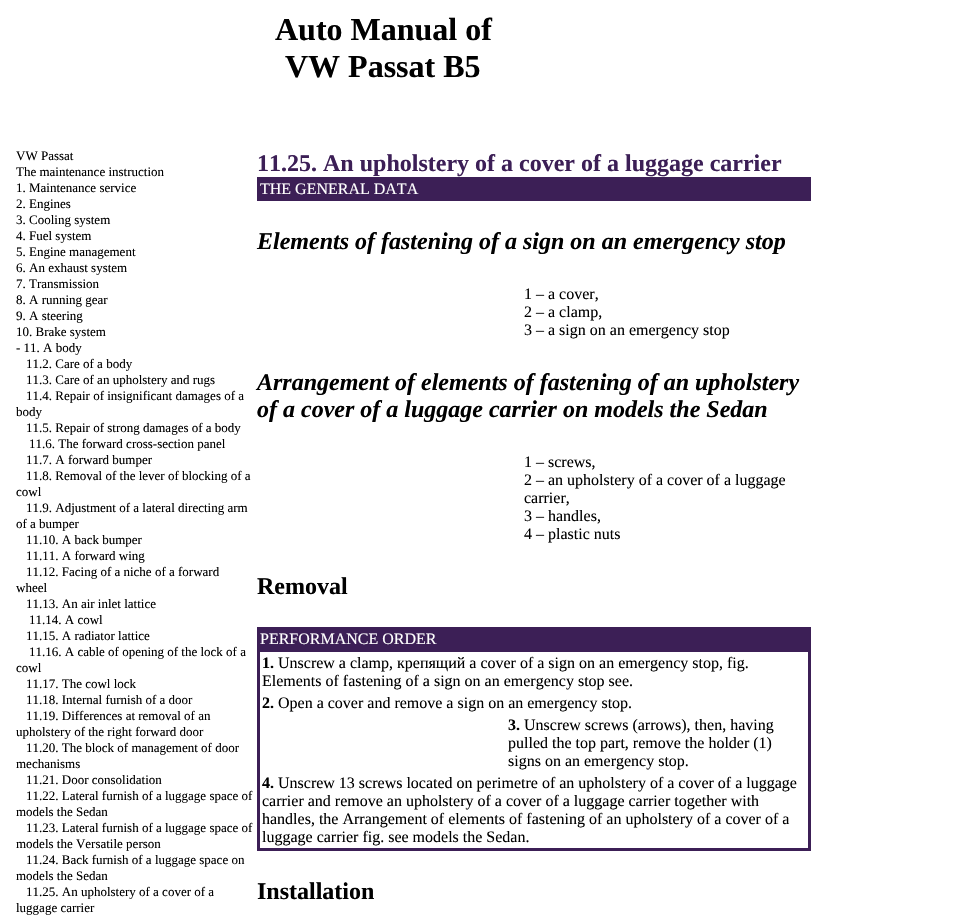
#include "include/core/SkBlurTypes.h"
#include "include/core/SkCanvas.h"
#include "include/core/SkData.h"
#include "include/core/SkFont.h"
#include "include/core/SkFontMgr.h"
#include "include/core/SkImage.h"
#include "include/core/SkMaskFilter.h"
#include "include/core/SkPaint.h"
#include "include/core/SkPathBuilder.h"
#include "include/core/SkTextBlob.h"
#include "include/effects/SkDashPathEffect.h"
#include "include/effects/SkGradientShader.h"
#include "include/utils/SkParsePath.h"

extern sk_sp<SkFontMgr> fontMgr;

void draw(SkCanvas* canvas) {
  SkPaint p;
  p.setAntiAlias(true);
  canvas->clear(SK_ColorWHITE);
  p.setColor(SkColorSetRGB(60, 31, 86));
  canvas->drawRect(SkRect::MakeLTRB(257, 177, 811, 201), p);
  canvas->drawRect(SkRect::MakeLTRB(257, 627, 811, 851), p);
  p.setColor(SK_ColorWHITE);
  canvas->drawRect(SkRect::MakeLTRB(260, 652, 808, 848), p);
  SkFont font1(fontMgr->matchFamilyStyle("Liberation Serif", SkFontStyle::Bold()), 32);
  font1.setSubpixel(true);
  p.setColor(SK_ColorBLACK);
  canvas->drawString("Auto Manual of", 275, 40, font1, p);
  canvas->drawString("VW Passat B5", 285, 77, font1, p);
  SkFont font2(fontMgr->matchFamilyStyle("Liberation Serif", SkFontStyle::Normal()), 13);
  font2.setSubpixel(true);
  canvas->drawString("VW Passat", 16, 160, font2, p);
  canvas->drawString("The maintenance instruction", 16, 176, font2, p);
  canvas->drawString("1. Maintenance service", 16, 192, font2, p);
  canvas->drawString("2. Engines", 16, 208, font2, p);
  canvas->drawString("3. Cooling system", 16, 224, font2, p);
  canvas->drawString("4. Fuel system", 16, 240, font2, p);
  canvas->drawString("5. Engine management", 16, 256, font2, p);
  canvas->drawString("6. An exhaust system", 16, 272, font2, p);
  canvas->drawString("7. Transmission", 16, 288, font2, p);
  canvas->drawString("8. A running gear", 16, 304, font2, p);
  canvas->drawString("9. A steering", 16, 320, font2, p);
  canvas->drawString("10. Brake system", 16, 336, font2, p);
  canvas->drawString("- 11. A body", 16, 352, font2, p);
  canvas->drawString("11.2. Care of a body", 26, 368, font2, p);
  canvas->drawString("11.3. Care of an upholstery and rugs", 26, 384, font2, p);
  canvas->drawString("11.4. Repair of insignificant damages of a", 26, 400, font2, p);
  canvas->drawString("body", 16, 416, font2, p);
  canvas->drawString("11.5. Repair of strong damages of a body", 26, 432, font2, p);
  canvas->drawString("11.6. The forward cross-section panel", 29, 448, font2, p);
  canvas->drawString("11.7. A forward bumper", 26, 464, font2, p);
  canvas->drawString("11.8. Removal of the lever of blocking of a", 26, 480, font2, p);
  canvas->drawString("cowl", 16, 496, font2, p);
  canvas->drawString("11.9. Adjustment of a lateral directing arm", 26, 512, font2, p);
  canvas->drawString("of a bumper", 16, 528, font2, p);
  canvas->drawString("11.10. A back bumper", 26, 544, font2, p);
  canvas->drawString("11.11. A forward wing", 26, 560, font2, p);
  canvas->drawString("11.12. Facing of a niche of a forward", 26, 576, font2, p);
  canvas->drawString("wheel", 16, 592, font2, p);
  canvas->drawString("11.13. An air inlet lattice", 26, 608, font2, p);
  canvas->drawString("11.14. A cowl", 29, 624, font2, p);
  canvas->drawString("11.15. A radiator lattice", 26, 640, font2, p);
  canvas->drawString("11.16. A cable of opening of the lock of a", 29, 656, font2, p);
  canvas->drawString("cowl", 16, 672, font2, p);
  canvas->drawString("11.17. The cowl lock", 26, 688, font2, p);
  canvas->drawString("11.18. Internal furnish of a door", 26, 704, font2, p);
  canvas->drawString("11.19. Differences at removal of an", 26, 720, font2, p);
  canvas->drawString("upholstery of the right forward door", 16, 736, font2, p);
  canvas->drawString("11.20. The block of management of door", 26, 752, font2, p);
  canvas->drawString("mechanisms", 16, 768, font2, p);
  canvas->drawString("11.21. Door consolidation", 26, 784, font2, p);
  canvas->drawString("11.22. Lateral furnish of a luggage space of", 26, 800, font2, p);
  canvas->drawString("models the Sedan", 16, 816, font2, p);
  canvas->drawString("11.23. Lateral furnish of a luggage space of", 26, 832, font2, p);
  canvas->drawString("models the Versatile person", 16, 848, font2, p);
  canvas->drawString("11.24. Back furnish of a luggage space on", 26, 864, font2, p);
  canvas->drawString("models the Sedan", 16, 880, font2, p);
  canvas->drawString("11.25. An upholstery of a cover of a", 26, 896, font2, p);
  canvas->drawString("luggage carrier", 16, 912, font2, p);
  SkFont font3(fontMgr->matchFamilyStyle("Liberation Serif", SkFontStyle::Bold()), 24);
  font3.setSubpixel(true);
  p.setColor(SkColorSetRGB(60, 31, 86));
  canvas->drawString("11.25. An upholstery of a cover of a luggage carrier", 257, 171, font3, p);
  SkFont font4(fontMgr->matchFamilyStyle("Liberation Serif", SkFontStyle::Normal()), 16);
  font4.setSubpixel(true);
  p.setColor(SK_ColorWHITE);
  canvas->drawString("THE GENERAL DATA", 260, 194, font4, p);
  SkFont font5(fontMgr->matchFamilyStyle("Liberation Serif", SkFontStyle::BoldItalic()), 24);
  font5.setSubpixel(true);
  p.setColor(SK_ColorBLACK);
  canvas->drawString("Elements of fastening of a sign on an emergency stop", 257, 249, font5, p);
  canvas->drawString("1 – a cover,", 524, 299, font4, p);
  canvas->drawString("2 – a clamp,", 524, 317, font4, p);
  canvas->drawString("3 – a sign on an emergency stop", 524, 335, font4, p);
  canvas->drawString("Arrangement of elements of fastening of an upholstery", 257, 390, font5, p);
  canvas->drawString("of a cover of a luggage carrier on models the Sedan", 257, 417, font5, p);
  canvas->drawString("1 – screws,", 524, 467, font4, p);
  canvas->drawString("2 – an upholstery of a cover of a luggage", 524, 485, font4, p);
  canvas->drawString("carrier,", 524, 503, font4, p);
  canvas->drawString("3 – handles,", 524, 521, font4, p);
  canvas->drawString("4 – plastic nuts", 524, 539, font4, p);
  canvas->drawString("Removal", 257, 594, font3, p);
  p.setColor(SK_ColorWHITE);
  canvas->drawString("PERFORMANCE ORDER", 260, 644, font4, p);
  SkFont font6(fontMgr->matchFamilyStyle("Liberation Serif", SkFontStyle::Bold()), 16);
  font6.setSubpixel(true);
  p.setColor(SK_ColorBLACK);
  canvas->drawString("1.", 262, 668, font6, p);
  canvas->drawString("Unscrew a clamp, крепящий a cover of a sign on an emergency stop, fig.", 278, 668, font4, p);
  canvas->drawString("Elements of fastening of a sign on an emergency stop see.", 262, 686, font4, p);
  canvas->drawString("2.", 262, 708, font6, p);
  canvas->drawString("Open a cover and remove a sign on an emergency stop.", 278, 708, font4, p);
  canvas->drawString("3.", 508, 730, font6, p);
  canvas->drawString("Unscrew screws (arrows), then, having", 524, 730, font4, p);
  canvas->drawString("pulled the top part, remove the holder (1)", 508, 748, font4, p);
  canvas->drawString("signs on an emergency stop.", 508, 766, font4, p);
  canvas->drawString("4.", 262, 788, font6, p);
  canvas->drawString("Unscrew 13 screws located on perimetre of an upholstery of a cover of a luggage", 278, 788, font4, p);
  canvas->drawString("carrier and remove an upholstery of a cover of a luggage carrier together with", 262, 806, font4, p);
  canvas->drawString("handles, the Arrangement of elements of fastening of an upholstery of a cover of a", 262, 824, font4, p);
  canvas->drawString("luggage carrier fig. see models the Sedan.", 262, 842, font4, p);
  canvas->drawString("Installation", 257, 899, font3, p);
}
